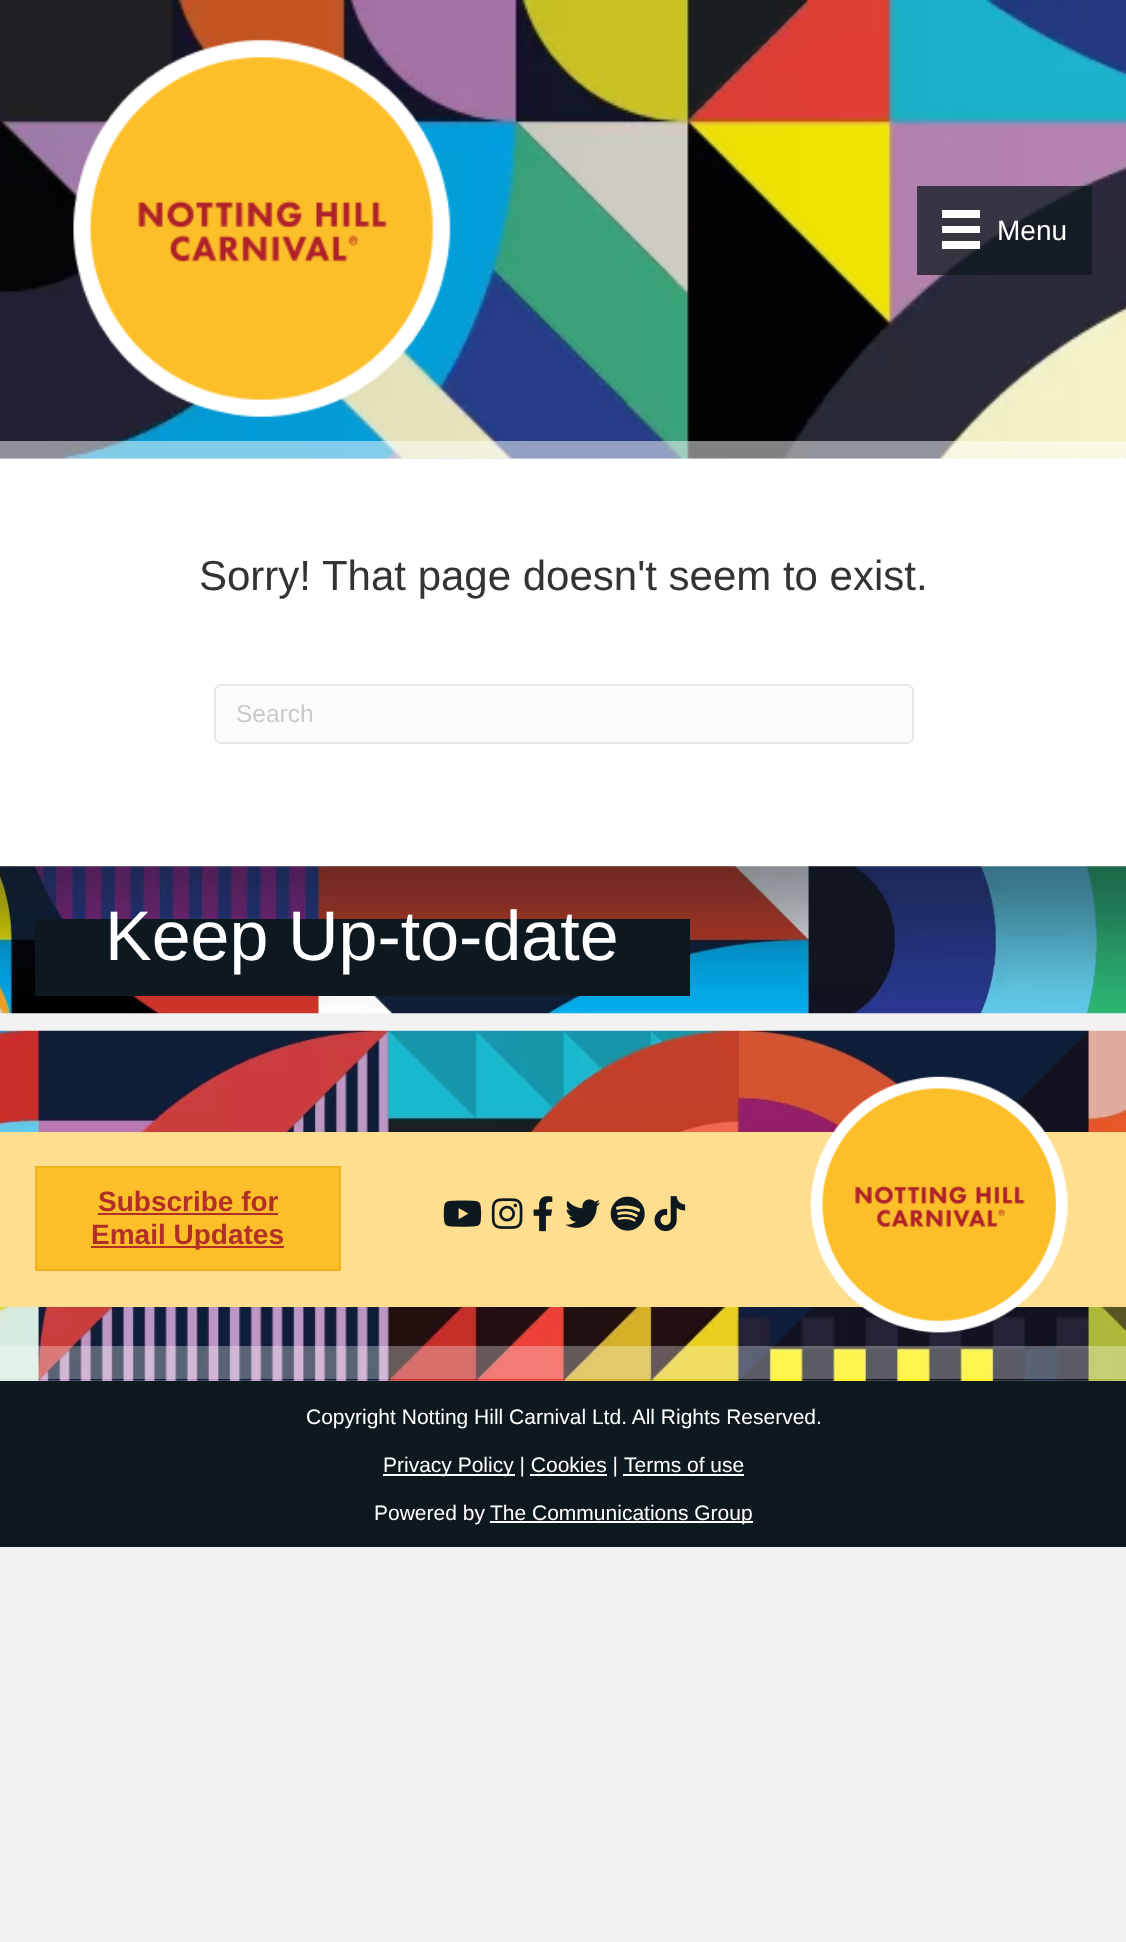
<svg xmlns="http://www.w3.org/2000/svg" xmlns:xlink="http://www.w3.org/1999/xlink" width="1126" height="1942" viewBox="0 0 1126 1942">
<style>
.cls-1{font:28px Liberation Sans;fill:#ffffff}
.cls-2{font:42px Liberation Sans;fill:#333333}
.cls-3{font:24.5px Liberation Sans;fill:#cacaca}
.cls-4{font:70px Liberation Sans;fill:#ffffff}
.cls-5{font:bold 28px Liberation Sans;fill:#b12f27}
.cls-6{font:21px Liberation Sans;fill:#ffffff}
</style>
<defs>
<linearGradient id="g1" gradientUnits="userSpaceOnUse" x1="0" y1="229" x2="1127" y2="229"><stop offset="0" stop-color="#0e191f" stop-opacity="0.15"/><stop offset="1" stop-color="#0e191f" stop-opacity="0.03"/></linearGradient>
</defs>
<rect width="100%" height="100%" fill="#f2f2f2"/>
<image xlink:href="image0.png" x="0" y="0" width="1126" height="459"/>
<rect fill="url(#g1)" x="0" y="0" width="1126" height="459"/>
<image xlink:href="image1.png" x="73" y="39" width="378" height="379"/>
<rect fill="#0e191f" fill-opacity="0.75" x="917" y="186" width="175" height="89"/>
<rect fill="#ffffff" x="942" y="210" width="38" height="8"/>
<rect fill="#ffffff" x="942" y="226" width="38" height="7"/>
<rect fill="#ffffff" x="942" y="241" width="38" height="8"/>
<rect fill="#ffffff" fill-opacity="0.5" x="0" y="441" width="1126" height="18"/>
<rect fill="#ffffff" x="0" y="459" width="1126" height="407"/>
<rect fill="#fcfcfc" stroke="#e6e6e6" stroke-width="2" x="215" y="685" width="698" height="58" rx="6"/>
<image xlink:href="image2.png" x="0" y="866" width="1126" height="148"/>
<rect fill="#0e191f" x="35" y="919" width="655" height="77"/>
<image xlink:href="image3.png" x="0" y="1030" width="1126" height="351"/>
<rect fill="#ffdf8f" x="0" y="1132" width="1126" height="175"/>
<rect fill="#fdbf29" stroke="#f1b31d" stroke-width="2" x="36" y="1167" width="304" height="103"/>
<rect fill="#b12f27" x="98" y="1213" width="180" height="2"/>
<rect fill="#b12f27" x="91" y="1246" width="193" height="2"/>
<image xlink:href="image4.png" x="443" y="1200" width="39" height="27"/>
<image xlink:href="image5.png" x="491" y="1198" width="32" height="31"/>
<image xlink:href="image6.png" x="533" y="1196" width="20" height="36"/>
<image xlink:href="image7.png" x="565" y="1199" width="36" height="29"/>
<image xlink:href="image8.png" x="610" y="1196" width="35" height="35"/>
<image xlink:href="image9.png" x="654" y="1196" width="32" height="36"/>
<image xlink:href="image10.png" x="810" y="1076" width="258" height="257"/>
<rect fill="#ffffff" fill-opacity="0.31" x="0" y="1346" width="1126" height="33"/>
<rect fill="#0e191f" x="0" y="1381" width="1126" height="166"/>
<rect fill="#ffffff" x="383" y="1474" width="132" height="2"/>
<rect fill="#ffffff" x="623" y="1474" width="121" height="2"/>
<rect fill="#ffffff" x="530" y="1474" width="77" height="2"/>
<rect fill="#ffffff" x="490" y="1521" width="263" height="2"/>
<text class="cls-1" x="997" y="240">Menu</text>
<text class="cls-2" x="199" y="590">Sorry! That page doesn't seem to exist.</text>
<text class="cls-3" x="236" y="722">Search</text>
<text class="cls-4" x="105" y="960">Keep Up-to-date</text>
<text class="cls-5" x="98" y="1211">Subscribe for</text>
<text class="cls-5" x="91" y="1244">Email Updates</text>
<text class="cls-6" x="306" y="1424">Copyright Notting Hill Carnival Ltd. All Rights Reserved.</text>
<text class="cls-6" x="383" y="1472">Privacy Policy | Cookies |</text>
<text class="cls-6" x="624" y="1472">Terms of use</text>
<text class="cls-6" x="374" y="1520">Powered by</text>
<text class="cls-6" x="490" y="1520">The Communications Group</text>
</svg>
